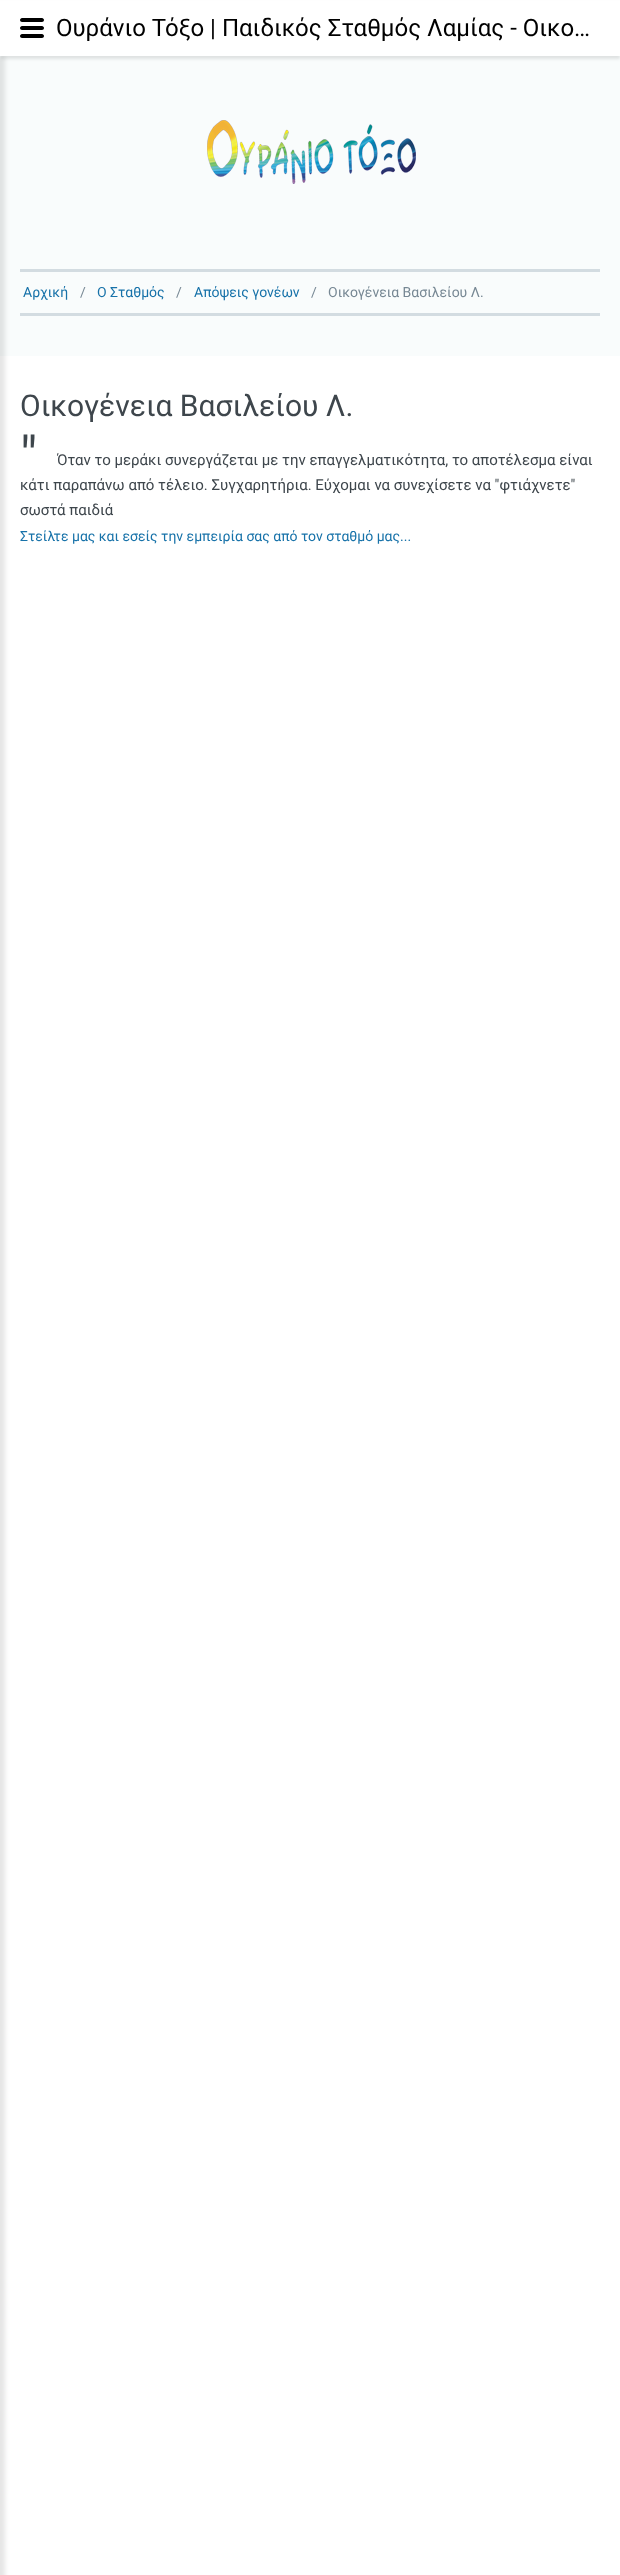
<svg xmlns="http://www.w3.org/2000/svg" xmlns:xlink="http://www.w3.org/1999/xlink" width="620" height="2575" viewBox="0 0 620 2575">
<style>
.cls-1{font:24px Roboto;fill:#000000}
.cls-2{font:14px Roboto;fill:#1772a9}
.cls-3{font:14px Roboto;fill:#778894}
.cls-4{font:30px Roboto;fill:#3e464c}
.cls-5{font:54px Roboto;fill:#3e464c}
.cls-6{font:15px Roboto;fill:#3e464c}
</style>
<rect width="100%" height="100%" fill="#ffffff"/>
<rect fill="#f9fcfc" x="0" y="56" width="620" height="300"/>
<rect fill="#000000" fill-opacity="0.1" filter="blur(1.5px)" x="0" y="3" width="620" height="56"/>
<rect fill="#000000" fill-opacity="0.1" filter="blur(2.5px)" x="-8" y="56" width="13" height="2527"/>
<rect fill="#ffffff" x="0" y="1" width="620" height="55"/>
<path fill="#000000" d="M42 30H22C21 30 20 29 20 28C20 27 21 26 22 26H42C43 26 44 27 44 28C44 29 43 30 42 30ZM42 38H22C21 38 20 37 20 36C20 35 21 34 22 34H42C43 34 44 35 44 36C44 37 43 38 42 38ZM42 22H22C21 22 20 21 20 20C20 19 21 18 22 18H42C43 18 44 19 44 20C44 21 43 22 42 22Z"/>
<image xlink:href="image0.png" x="207" y="120" width="209" height="64"/>
<rect fill="#d3dce1" x="20" y="269" width="580" height="3"/>
<rect fill="#d3dce1" x="20" y="313" width="580" height="3"/>
<text class="cls-1" x="56" y="36">Ουράνιο Τόξο | Παιδικός Σταθμός Λαμίας - Οικο…</text>
<text class="cls-2" x="23" y="297">Αρχική</text>
<text class="cls-3" x="80" y="297">/</text>
<text class="cls-2" x="97" y="297">Ο Σταθμός</text>
<text class="cls-3" x="176" y="297">/</text>
<text class="cls-2" x="194" y="297">Απόψεις γονέων</text>
<text class="cls-3" x="311" y="297">/</text>
<text class="cls-3" x="328" y="297">Οικογένεια Βασιλείου Λ.</text>
<text class="cls-4" x="20" y="416">Οικογένεια Βασιλείου Λ.</text>
<text class="cls-5" x="20" y="475">"</text>
<text class="cls-6" x="57" y="465">Όταν το μεράκι συνεργάζεται με την επαγγελματικότητα, το αποτέλεσμα είναι</text>
<text class="cls-6"><tspan x="20" y="490">κάτι παραπάνω από τέλειο. Συγχαρητήρια. Εύχομαι να συνεχίσετε να "φτιάχνετε"</tspan><tspan x="20" y="515">σωστά παιδιά</tspan></text>
<text class="cls-2" x="20" y="541">Στείλτε μας και εσείς την εμπειρία σας από τον σταθμό μας...</text>
</svg>
